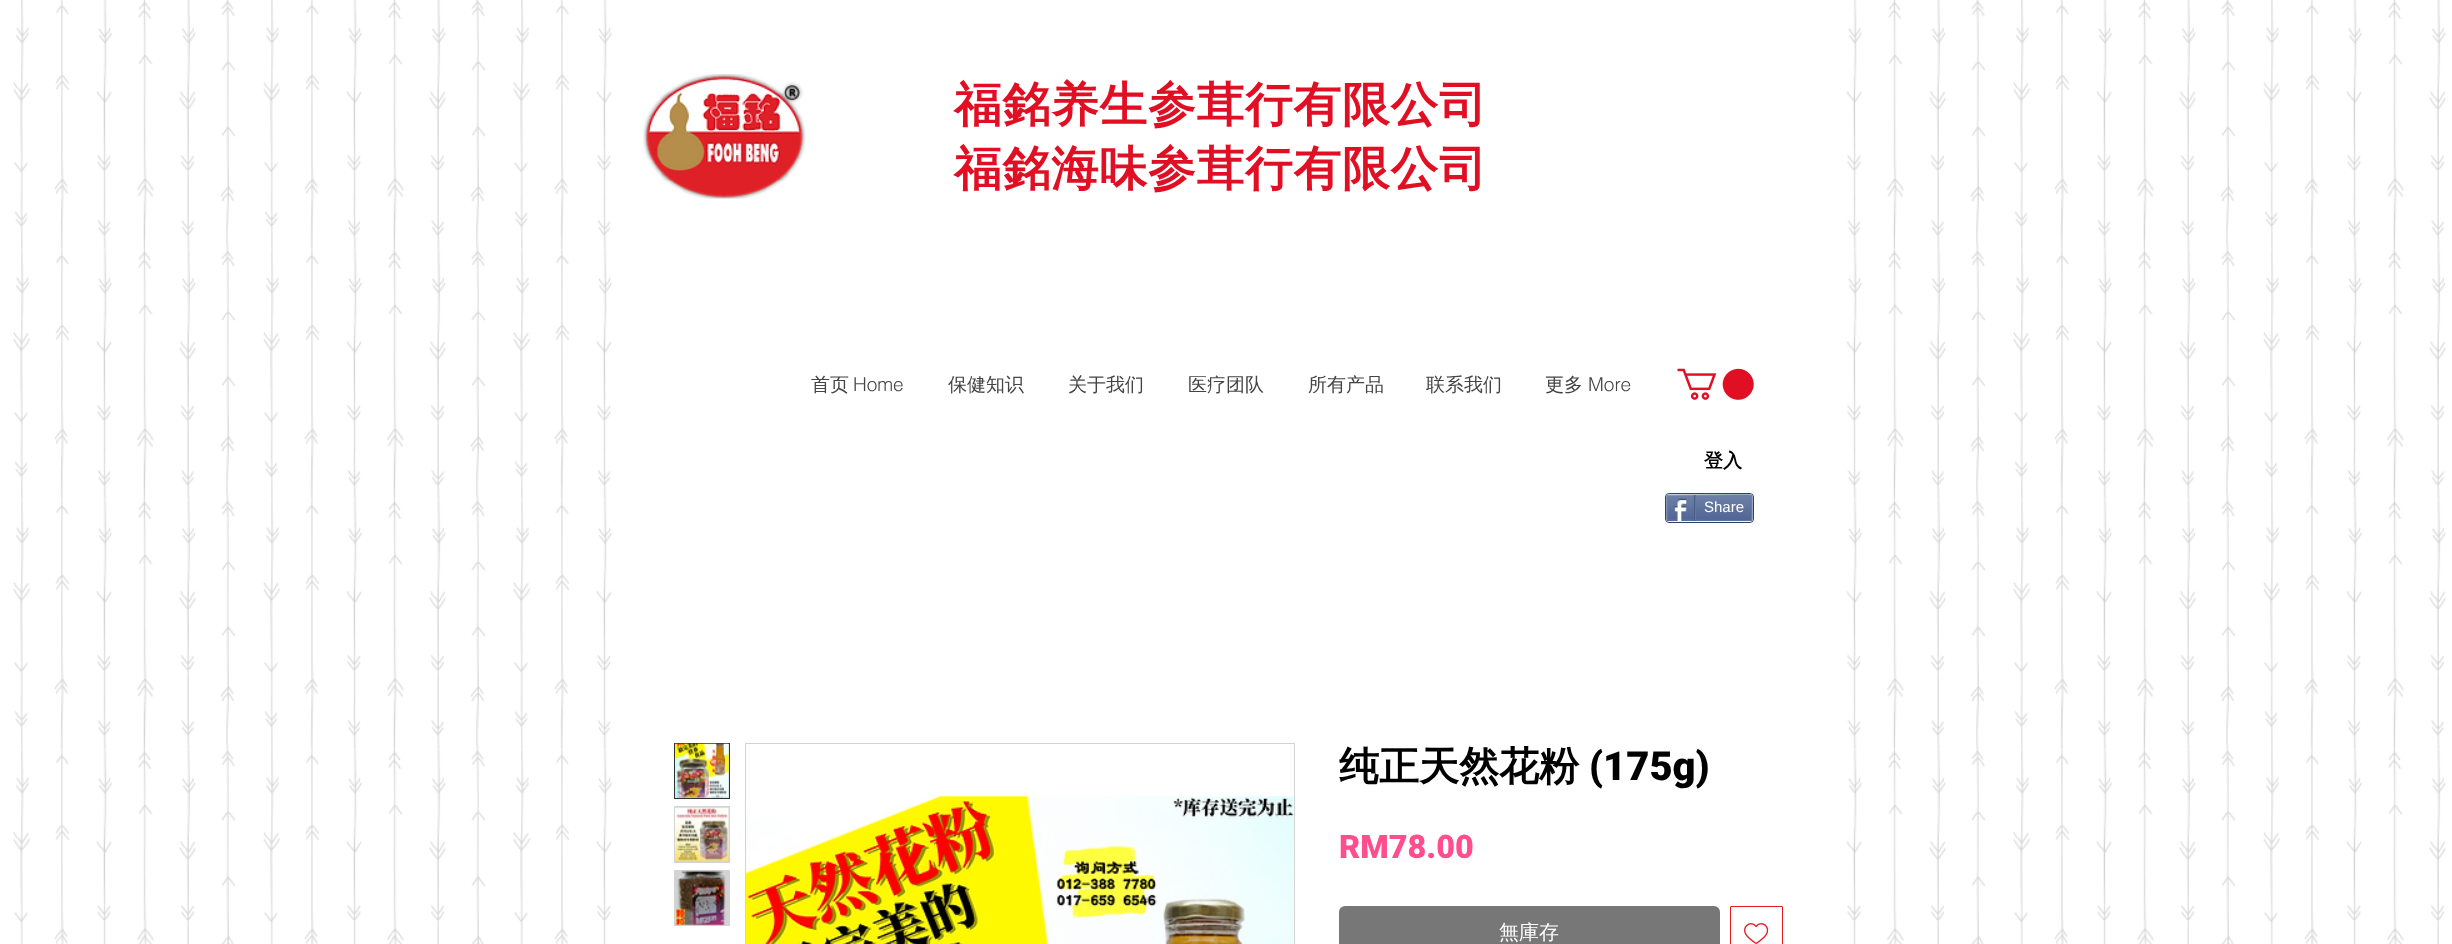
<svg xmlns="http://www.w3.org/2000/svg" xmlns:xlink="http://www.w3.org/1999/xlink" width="2452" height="944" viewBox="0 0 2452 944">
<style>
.cls-1{font:bold 47.5px WenQuanYi Zen Hei;letter-spacing:1px;fill:#e00f24}
.cls-2{font:500 19px WenQuanYi Zen Hei;fill:#444444}
.cls-3{font:300 19px helvetica;fill:#444444}
.cls-4{font:bold 19px WenQuanYi Zen Hei;fill:#000000}
.cls-5{font:15px Liberation Sans;fill:#ffffff}
.cls-6{font:bold 40px WenQuanYi Zen Hei;fill:#000000}
.cls-7{font:900 40px Roboto;fill:#000000}
.cls-8{font:900 32.5px Roboto;fill:#ff4d8e}
.cls-9{font:500 20px WenQuanYi Zen Hei;fill:#ffffff}
</style>
<rect width="100%" height="100%" fill="#ffffff"/>
<image xlink:href="image0.png" x="13" y="0" width="2433" height="944"/>
<rect fill="#ffffff" x="637" y="0" width="1182" height="944"/>
<image xlink:href="image1.png" x="643" y="74" width="163" height="125"/>
<image xlink:href="image2.png" x="1677" y="368" width="77" height="32"/>
<rect fill="none" stroke="#2d4565" x="1665.5" y="493.5" width="88" height="29" rx="3.5"/>
<image xlink:href="image3.png" x="1666" y="495" width="87" height="27"/>
<path fill="none" stroke="#9aabc6" stroke-width="1.2" d="M1667.5 495L1736.5 494.5H1750L1751.5 495"/>
<path fill="none" stroke="#6f83ad" stroke-width="1.2" d="M1751.5 495L1752 496V519L1751.5 520"/>
<path fill="none" stroke="#6176a3" stroke-width="1.2" d="M1751.5 520L1750 520.5L1667.5 520"/>
<path fill="none" stroke="#6f83ad" stroke-width="1.2" d="M1667.5 520L1667 519V496L1667.5 495"/>
<image xlink:href="image4.png" x="1674" y="498" width="13" height="23"/>
<rect fill="#425e85" x="1694" y="495" width="1" height="26"/>
<rect fill="#6176a3" x="1695" y="495" width="1" height="25"/>
<rect fill="#d3d3d3" stroke="#303132" x="674.5" y="743.5" width="55" height="55"/>
<image xlink:href="image5.png" x="675" y="743" width="54" height="55"/>
<rect fill="#d3d3d3" x="674" y="806" width="56" height="57"/>
<image xlink:href="image6.png" x="675" y="807" width="54" height="55"/>
<rect fill="#d3d3d3" x="674" y="870" width="56" height="56"/>
<image xlink:href="image7.png" x="675" y="870" width="51" height="56"/>
<rect fill="none" stroke="#d3d3d3" x="745.5" y="743.5" width="549" height="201"/>
<image xlink:href="image8.png" x="746" y="796" width="548" height="148"/>
<rect fill="#777777" x="1339" y="906" width="381" height="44" rx="6"/>
<rect fill="none" stroke="#e21c21" x="1730.5" y="906.5" width="52" height="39" rx="0.5"/>
<image xlink:href="image9.png" x="1744" y="923" width="25" height="21"/>
<text class="cls-1"><tspan x="954" y="121">福銘养生参茸行有限公司</tspan><tspan x="954" y="185">福銘海味参茸行有限公司</tspan></text>
<text class="cls-2" x="811" y="391">首页</text>
<text class="cls-3" x="853" y="391">Home</text>
<text class="cls-2" x="948" y="391">保健知识</text>
<text class="cls-2" x="1068" y="391">关于我们</text>
<text class="cls-2" x="1188" y="391">医疗团队</text>
<text class="cls-2" x="1308" y="391">所有产品</text>
<text class="cls-2" x="1426" y="391">联系我们</text>
<text class="cls-2" x="1545" y="391">更多</text>
<text class="cls-3" x="1588" y="391">More</text>
<text class="cls-4" x="1704" y="467">登入</text>
<text class="cls-5" x="1704" y="512">Share</text>
<text class="cls-6" x="1339" y="780">纯正天然花粉</text>
<text class="cls-7" x="1589" y="780">(175g)</text>
<text class="cls-8" x="1339" y="858">RM78.00</text>
<text class="cls-9" x="1499" y="939">無庫存</text>
</svg>
